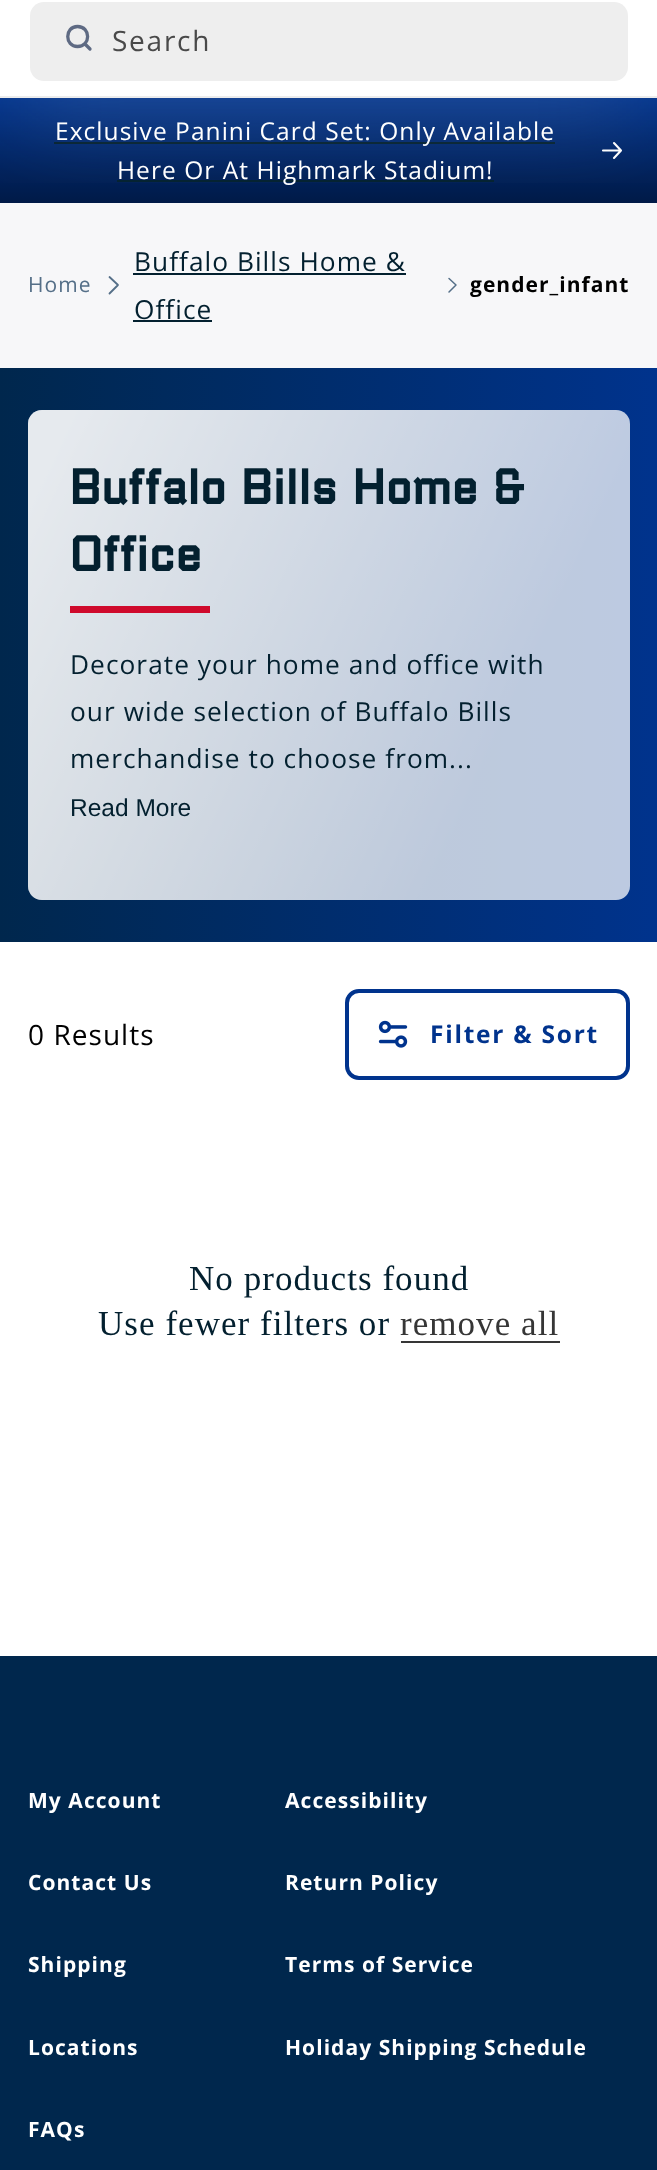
<svg xmlns="http://www.w3.org/2000/svg" xmlns:xlink="http://www.w3.org/1999/xlink" width="657" height="2170" viewBox="0 0 657 2170">
<style>
.cls-1{font:28px Open Sans;letter-spacing:1.75px;fill:#494949}
.cls-2{font:24.5px Open Sans;letter-spacing:1.05px;fill:#ffffff}
.cls-3{font:21px Open Sans;letter-spacing:1.05px;fill:#556f88}
.cls-4{font:26.25px Open Sans;letter-spacing:1.05px;fill:#03202f}
.cls-5{font:bold 21px Open Sans;letter-spacing:1.05px;fill:#000000}
.cls-6{font:bold 49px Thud;letter-spacing:1.05px;fill:#03202f}
.cls-7{font:24.5px Liberation Sans;fill:#03202f}
.cls-8{font:28px Open Sans;letter-spacing:1.05px;fill:#000000}
.cls-9{font:bold 24.5px Open Sans;letter-spacing:1.75px;fill:#00338d}
.cls-10{font:35px Liberation Serif;letter-spacing:1.05px;fill:#03202f}
.cls-11{font:35px Liberation Serif;letter-spacing:1.05px;fill:#363636}
.cls-12{font:bold 21px Open Sans;letter-spacing:1.05px;fill:#ffffff}
</style>
<defs>
<linearGradient id="g1" gradientUnits="userSpaceOnUse" x1="329" y1="98" x2="329" y2="203"><stop offset="0" stop-color="#00338d"/><stop offset="1" stop-color="#001a47"/></linearGradient>
<clipPath id="clip1"><rect x="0" y="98" width="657" height="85"/></clipPath>
<linearGradient id="g2" gradientUnits="userSpaceOnUse" x1="0" y1="655" x2="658" y2="655"><stop offset="0" stop-color="#00274d"/><stop offset="1" stop-color="#00338d"/></linearGradient>
<linearGradient id="g3" gradientUnits="userSpaceOnUse" x1="-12" y1="495" x2="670" y2="814"><stop offset="0.05" stop-color="#ffffff" stop-opacity="0.65"/><stop offset="0.75" stop-color="#fcfcfc" stop-opacity="0.08"/></linearGradient>
</defs>
<rect width="100%" height="100%" fill="#ffffff"/>
<rect fill="url(#g1)" x="0" y="98" width="657" height="105"/>
<rect fill="#03202f" x="54" y="142" width="501" height="2"/>
<path fill="none" stroke="#ffffff" stroke-width="2.1" stroke-linecap="round" stroke-linejoin="round" d="M614 143L621 150.5L614 158M620 150.5H603"/>
<rect fill="#03202f" x="117" y="180" width="377" height="2"/>
<rect fill="#f7f7f9" x="0" y="203" width="657" height="165"/>
<rect fill="#03202f" x="133" y="273" width="273" height="2"/>
<g clip-path="url(#clip1)">
<rect fill="#aab7c4" fill-opacity="0.2" filter="blur(52.5px)" x="14" y="-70" width="630" height="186"/>
</g>
<rect fill="#ececec" x="0" y="96" width="657" height="2"/>
<rect fill="#eeeeee" x="30" y="2" width="598" height="79" rx="14"/>
<path fill="none" stroke="#5e6a83" stroke-width="3.3" stroke-linecap="round" stroke-linejoin="round" d="M77.5 46.5C91 46.5 91 26.5 77.5 26.5C64.5 26.5 64.5 46.5 77.5 46.5ZM90 49L85.5 44.5"/>
<path fill="none" stroke="#556f88" stroke-width="1.8" stroke-linecap="round" stroke-linejoin="round" d="M109.5 277L118 285L109.5 293.5"/>
<rect fill="#03202f" x="133" y="320" width="79" height="2"/>
<path fill="none" stroke="#556f88" stroke-width="1.5" stroke-linecap="round" stroke-linejoin="round" d="M449 278.5L456 285L449 292"/>
<rect fill="url(#g2)" x="0" y="368" width="657" height="574"/>
<rect fill="url(#g3)" x="28" y="410" width="602" height="490" rx="14"/>
<rect fill="#ffffff" fill-opacity="0.72" x="28" y="410" width="602" height="490" rx="14"/>
<rect fill="#cf0a2c" x="70" y="606" width="140" height="7"/>
<rect fill="none" stroke="#00338d" stroke-width="4" x="347" y="991" width="281" height="87" rx="12"/>
<image xlink:href="image0.png" x="378" y="1020" width="30" height="28"/>
<rect fill="#363636" x="401" y="1341" width="159" height="2"/>
<rect fill="#00274d" x="0" y="1656" width="657" height="514"/>
<text class="cls-1" x="112" y="51">Search</text>
<text class="cls-2" x="55" y="140">Exclusive Panini Card Set: Only Available</text>
<text class="cls-2" x="117" y="179">Here Or At Highmark Stadium!</text>
<text class="cls-3" x="28" y="292">Home</text>
<text class="cls-4"><tspan x="134" y="271">Buffalo Bills Home &amp;</tspan><tspan x="134" y="319">Office</tspan></text>
<text class="cls-5" x="470" y="292">gender_infant</text>
<text class="cls-6"><tspan x="70" y="504">Buffalo Bills Home &amp;</tspan><tspan x="70" y="571">Office</tspan></text>
<text class="cls-4"><tspan x="70" y="674">Decorate your home and office with</tspan><tspan x="70" y="721">our wide selection of Buffalo Bills</tspan><tspan x="70" y="768">merchandise to choose from...</tspan></text>
<text class="cls-7" x="70" y="816">Read More</text>
<text class="cls-8" x="28" y="1045">0 Results</text>
<text class="cls-9" x="430" y="1043">Filter &amp; Sort</text>
<text class="cls-10" x="189" y="1290">No products found</text>
<text class="cls-10" x="98" y="1335">Use fewer filters or</text>
<text class="cls-11" x="400" y="1335">remove all</text>
<text class="cls-12" x="28" y="1808">My Account</text>
<text class="cls-12" x="285" y="1808">Accessibility</text>
<text class="cls-12" x="28" y="1890">Contact Us</text>
<text class="cls-12" x="285" y="1890">Return Policy</text>
<text class="cls-12" x="28" y="1972">Shipping</text>
<text class="cls-12" x="285" y="1972">Terms of Service</text>
<text class="cls-12" x="28" y="2055">Locations</text>
<text class="cls-12" x="285" y="2055">Holiday Shipping Schedule</text>
<text class="cls-12" x="28" y="2137">FAQs</text>
</svg>
